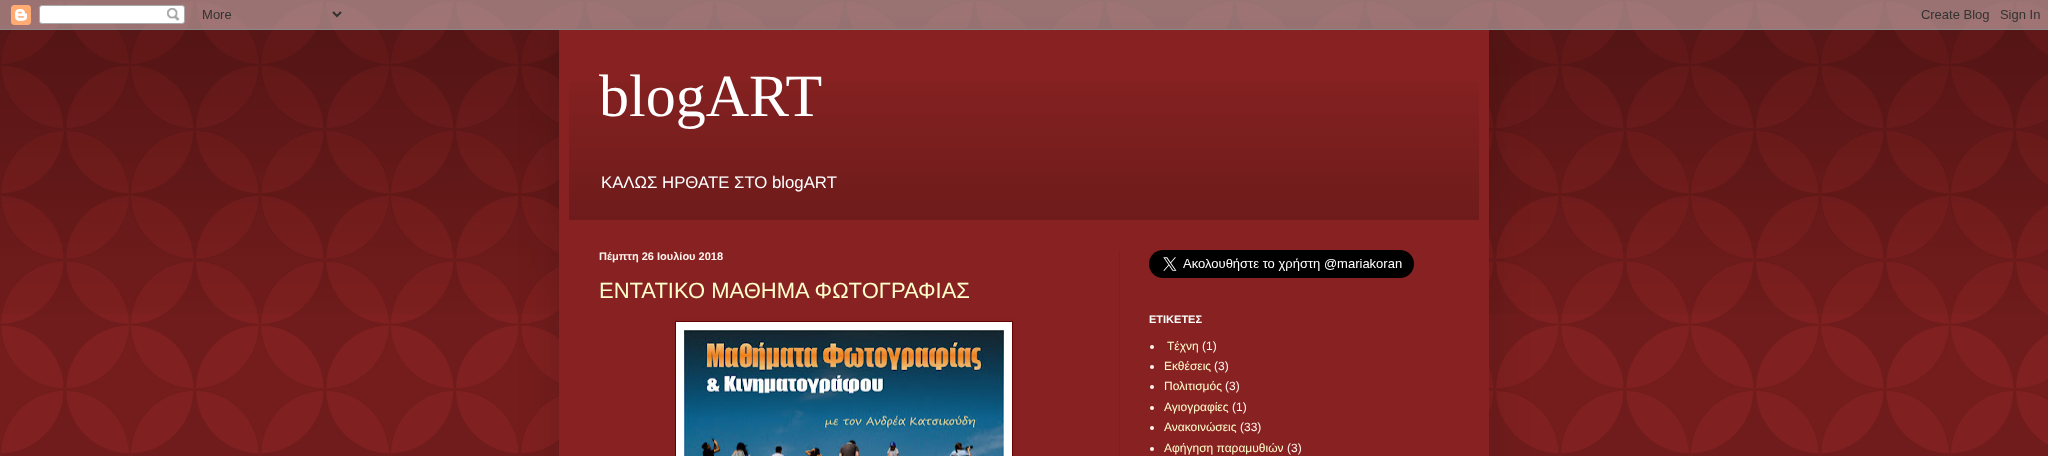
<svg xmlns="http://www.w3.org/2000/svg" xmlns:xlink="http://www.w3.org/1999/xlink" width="2048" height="456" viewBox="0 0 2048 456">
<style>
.cls-1{font:60px Liberation Serif;fill:#ffffff}
.cls-2{font:16.75px Liberation Sans;fill:#ffffff}
.cls-3{font:bold 11px Liberation Sans;fill:#fff5ee}
.cls-4{font:22px Liberation Sans;fill:#ffffcc}
.cls-5{font:bold 11px Liberation Sans;fill:#ffffff}
.cls-6{font:12px Liberation Sans;fill:#ffffcc}
.cls-7{font:12px Liberation Sans;fill:#fff5ee}
</style>
<rect width="100%" height="100%" fill="#882222"/>
<image xlink:href="image0.png" x="0" y="0" width="2048" height="456"/>
<image xlink:href="image1.png" x="0" y="0" width="2048" height="314"/>
<rect fill="#000000" fill-opacity="0.15" filter="blur(20px)" x="559" y="30" width="930" height="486"/>
<image xlink:href="image2.png" x="0" y="0" width="2048" height="30"/>
<rect fill="#882222" x="559" y="30" width="930" height="426"/>
<image xlink:href="image3.png" x="569" y="82" width="910" height="138"/>
<rect fill="#772222" x="1119" y="250" width="1" height="206"/>
<rect fill="#000000" fill-opacity="0.1" filter="blur(2.5px)" x="676" y="322" width="338" height="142"/>
<rect fill="#ffffff" stroke="#660000" x="675.5" y="321.5" width="337" height="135"/>
<image xlink:href="image4.png" x="684" y="330" width="320" height="126"/>
<image xlink:href="image5.png" x="1149" y="250" width="265" height="28"/>
<circle fill="#fff5ee" cx="1152" cy="347" r="2"/>
<circle fill="#fff5ee" cx="1152" cy="367" r="2"/>
<circle fill="#fff5ee" cx="1152" cy="387" r="2"/>
<circle fill="#fff5ee" cx="1152" cy="408" r="2"/>
<circle fill="#fff5ee" cx="1152" cy="428" r="2"/>
<circle fill="#fff5ee" cx="1152" cy="449" r="2"/>
<text class="cls-1" x="599" y="116">blogART</text>
<text class="cls-2" x="601" y="188">ΚΑΛΩΣ ΗΡΘΑΤΕ ΣΤΟ blogART</text>
<text class="cls-3" x="599" y="260">Πέμπτη 26 Ιουλίου 2018</text>
<text class="cls-4" x="599" y="298">ΕΝΤΑΤΙΚΟ ΜΑΘΗΜΑ ΦΩΤΟΓΡΑΦΙΑΣ</text>
<text class="cls-5" x="1149" y="323">ΕΤΙΚΕΤΕΣ</text>
<text class="cls-6" x="1167" y="350">Tέχνη</text>
<text class="cls-7" x="1202" y="350">(1)</text>
<text class="cls-6" x="1164" y="370">Εκθέσεις</text>
<text class="cls-7" x="1214" y="370">(3)</text>
<text class="cls-6" x="1164" y="390">Πολιτισμός</text>
<text class="cls-7" x="1225" y="390">(3)</text>
<text class="cls-6" x="1164" y="411">Αγιογραφίες</text>
<text class="cls-7" x="1232" y="411">(1)</text>
<text class="cls-6" x="1164" y="431">Ανακοινώσεις</text>
<text class="cls-7" x="1240" y="431">(33)</text>
<text class="cls-6" x="1164" y="452">Αφήγηση παραμυθιών</text>
<text class="cls-7" x="1287" y="452">(3)</text>
</svg>
